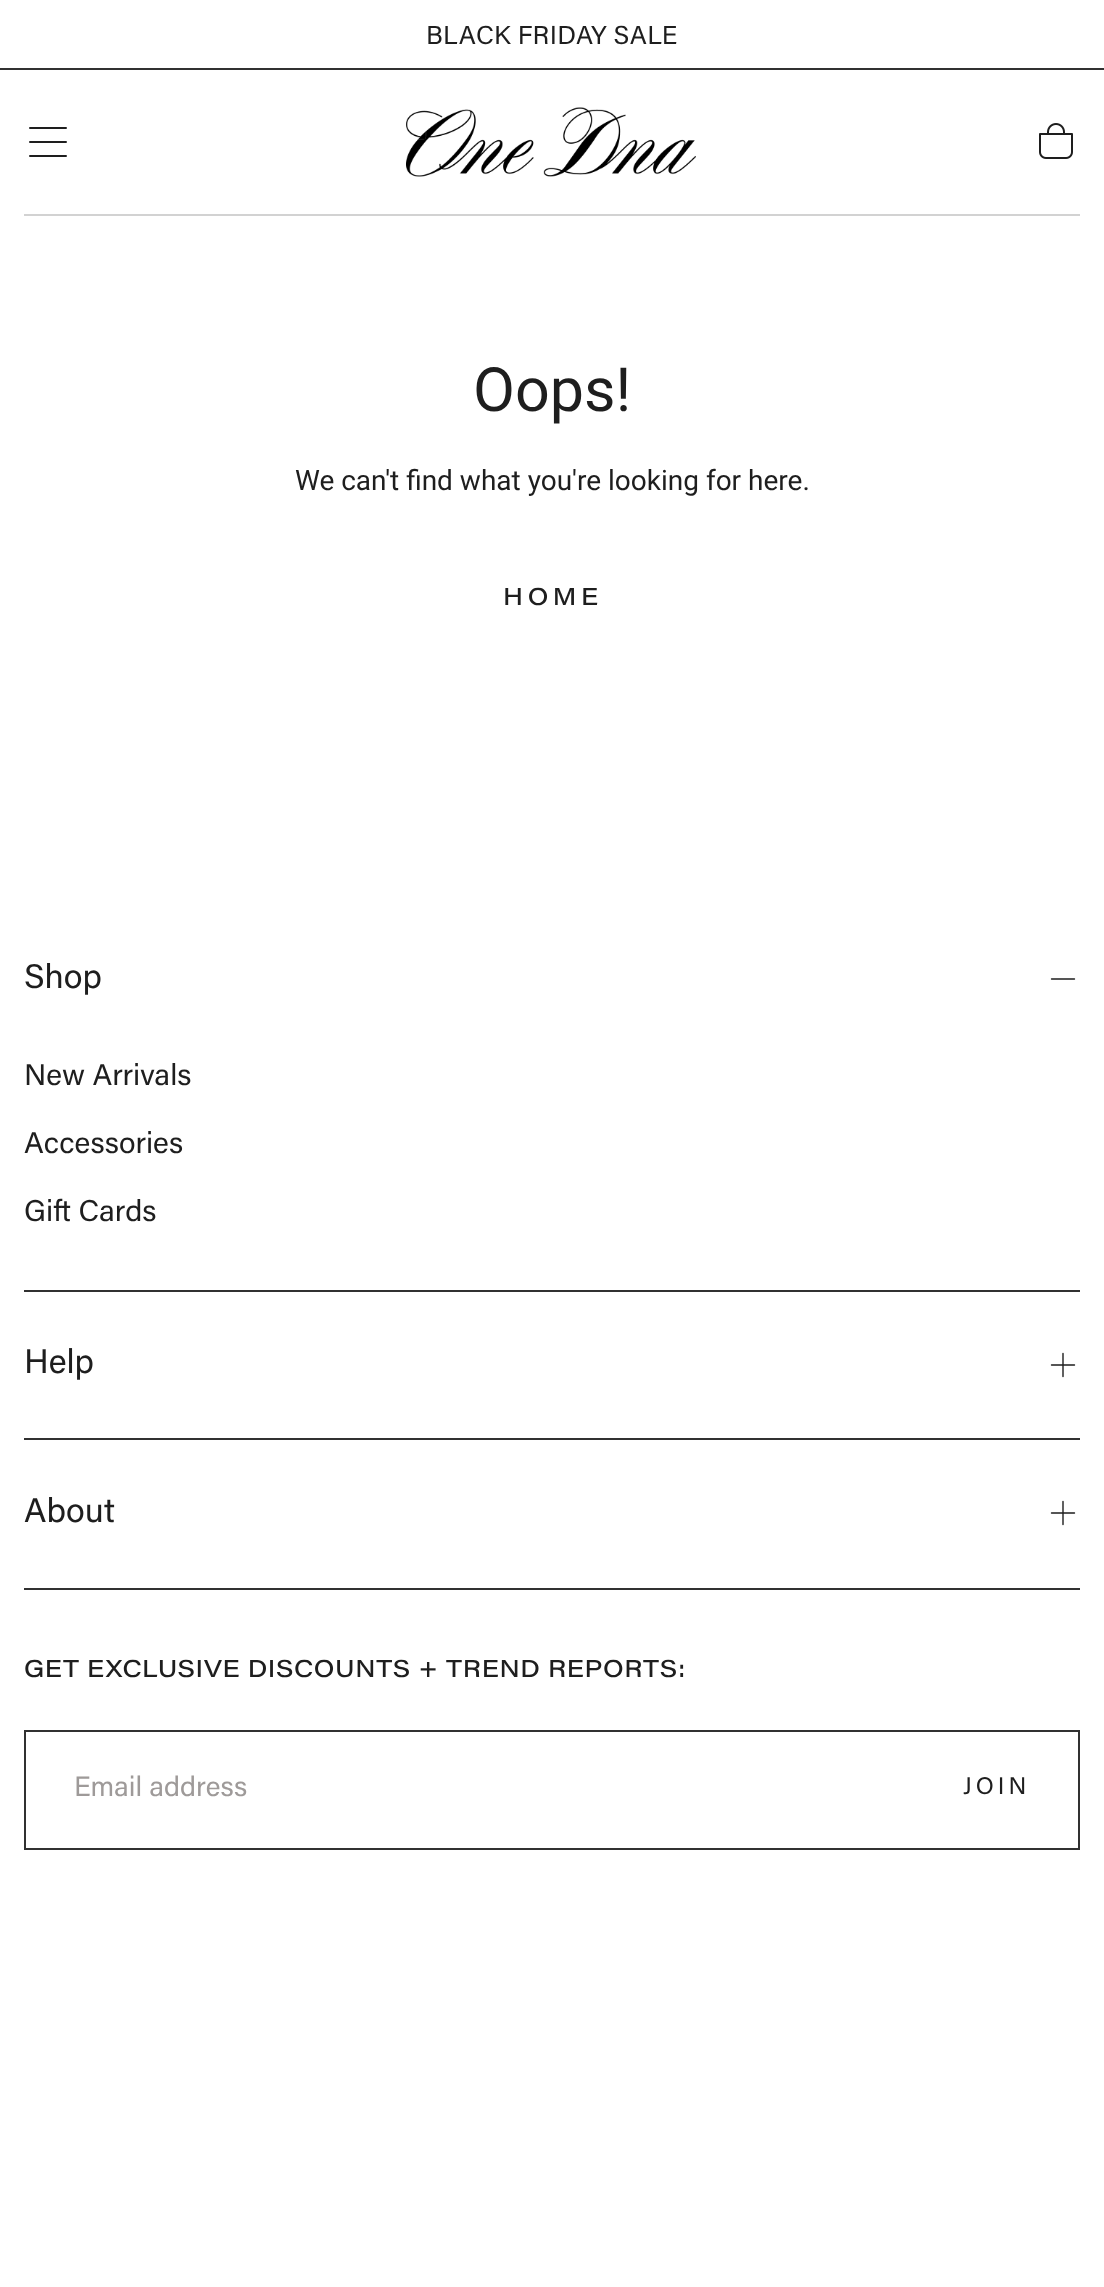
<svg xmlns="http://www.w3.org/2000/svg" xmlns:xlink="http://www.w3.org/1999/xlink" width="1104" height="2287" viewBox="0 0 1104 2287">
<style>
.cls-1{font:26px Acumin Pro;letter-spacing:0.25px;fill:#1e1e1e}
.cls-2{font:61px Roboto;fill:#1e1e1e}
.cls-3{font:28px Roboto;fill:#1e1e1e}
.cls-4{font:500 24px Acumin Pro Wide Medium;letter-spacing:4.5px;fill:#1e1e1e}
.cls-5{font:34px Acumin Pro;fill:#1e1e1e}
.cls-6{font:30px Acumin Pro;fill:#1e1e1e}
.cls-7{font:500 24px Acumin Pro Wide Medium;letter-spacing:0.5px;fill:#1e1e1e}
.cls-8{font:28px Acumin Pro;fill:#9e9a99}
.cls-9{font:24px Acumin Pro;letter-spacing:4px;fill:#1e1e1e}
</style>
<rect width="100%" height="100%" fill="#ffffff"/>
<rect fill="#313131" x="0" y="68" width="1104" height="2"/>
<path fill="none" stroke="#1e1e1e" stroke-width="2" stroke-linecap="round" d="M30 142H66M30 128H66M30 156H66"/>
<image xlink:href="image0.png" x="406" y="107" width="290" height="70"/>
<image xlink:href="image1.png" x="1039" y="123" width="34" height="36"/>
<rect fill="#d2d2d2" x="24" y="214" width="1056" height="2"/>
<rect fill="#313131" x="24" y="1290" width="1056" height="2"/>
<path fill="none" stroke="#1e1e1e" stroke-width="1.4" stroke-linecap="round" d="M1051.5 979H1074.5"/>
<rect fill="#313131" x="24" y="1438" width="1056" height="2"/>
<path fill="none" stroke="#1e1e1e" stroke-width="1.4" stroke-linecap="round" d="M1063 1353.5V1365M1063 1365V1376.5M1063 1365H1051.5M1063 1365H1074.5"/>
<rect fill="#313131" x="24" y="1588" width="1056" height="2"/>
<path fill="none" stroke="#1e1e1e" stroke-width="1.4" stroke-linecap="round" d="M1063 1501.5V1513M1063 1513V1524.5M1063 1513H1051.5M1063 1513H1074.5"/>
<rect fill="none" stroke="#313131" stroke-width="2" x="25" y="1731" width="1054" height="118"/>
<text class="cls-1" x="426" y="44">BLACK FRIDAY SALE</text>
<text class="cls-2" x="473" y="411">Oops!</text>
<text class="cls-3" x="295" y="490">We can't find what you're looking for here.</text>
<text class="cls-4" x="503" y="605">HOME</text>
<text class="cls-5" x="24" y="988">Shop</text>
<text class="cls-6" x="24" y="1085">New Arrivals</text>
<text class="cls-6" x="24" y="1153">Accessories</text>
<text class="cls-6" x="24" y="1221">Gift Cards</text>
<text class="cls-5" x="24" y="1373">Help</text>
<text class="cls-5" x="24" y="1522">About</text>
<text class="cls-7" x="24" y="1677">GET EXCLUSIVE DISCOUNTS + TREND REPORTS:</text>
<text class="cls-8" x="74" y="1796">Email address</text>
<text class="cls-9" x="963" y="1794">JOIN</text>
</svg>
